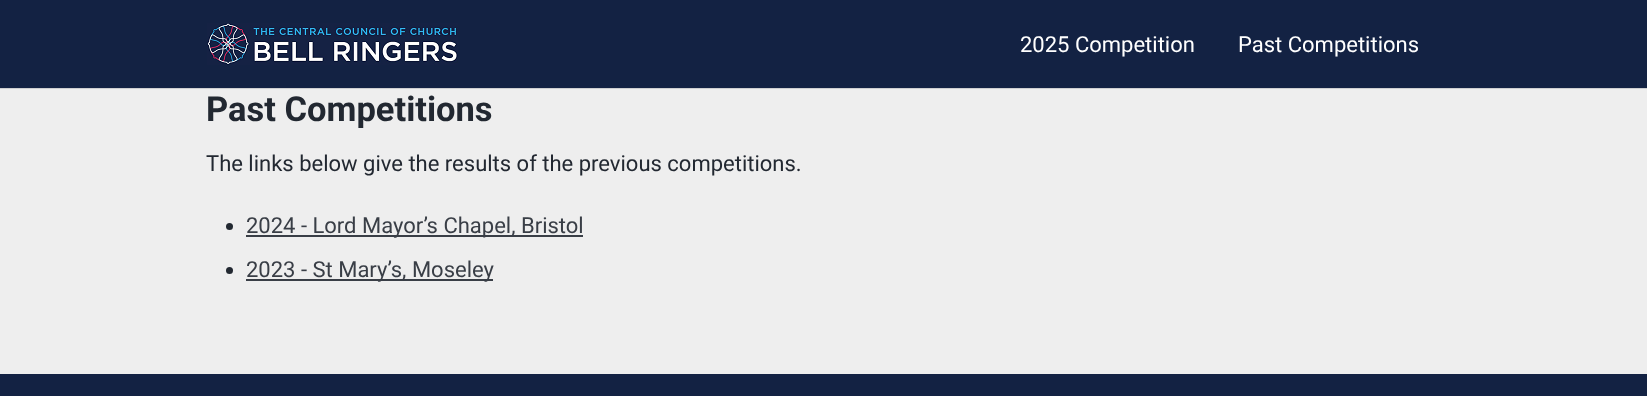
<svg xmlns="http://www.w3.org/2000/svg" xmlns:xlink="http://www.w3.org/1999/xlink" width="1647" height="396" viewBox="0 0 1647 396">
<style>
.cls-1{font:22px Roboto;fill:#ffffff}
.cls-2{font:bold 34.5px Roboto;fill:#222831}
.cls-3{font:22px Roboto;fill:#222831}
.cls-4{font:22px Roboto;fill:#393e46}
</style>
<rect width="100%" height="100%" fill="#eeeeee"/>
<rect fill="#132243" x="0" y="0" width="1647" height="88"/>
<rect fill="#cecfd1" x="0" y="88" width="1647" height="1"/>
<image xlink:href="image0.png" x="207" y="23" width="251" height="42"/>
<circle fill="#222831" cx="229.5" cy="226.5" r="3.5"/>
<rect fill="#393e46" x="246" y="235" width="337" height="2"/>
<circle fill="#222831" cx="229.5" cy="270.5" r="3.5"/>
<rect fill="#393e46" x="246" y="279" width="247" height="2"/>
<rect fill="#132243" x="0" y="374" width="1647" height="22"/>
<text class="cls-1" x="1020" y="52">2025 Competition</text>
<text class="cls-1" x="1238" y="52">Past Competitions</text>
<text class="cls-2" x="206" y="121">Past Competitions</text>
<text class="cls-3" x="206" y="171">The links below give the results of the previous competitions.</text>
<text class="cls-4" x="246" y="233">2024 - Lord Mayor’s Chapel, Bristol</text>
<text class="cls-4" x="246" y="277">2023 - St Mary’s, Moseley</text>
</svg>
